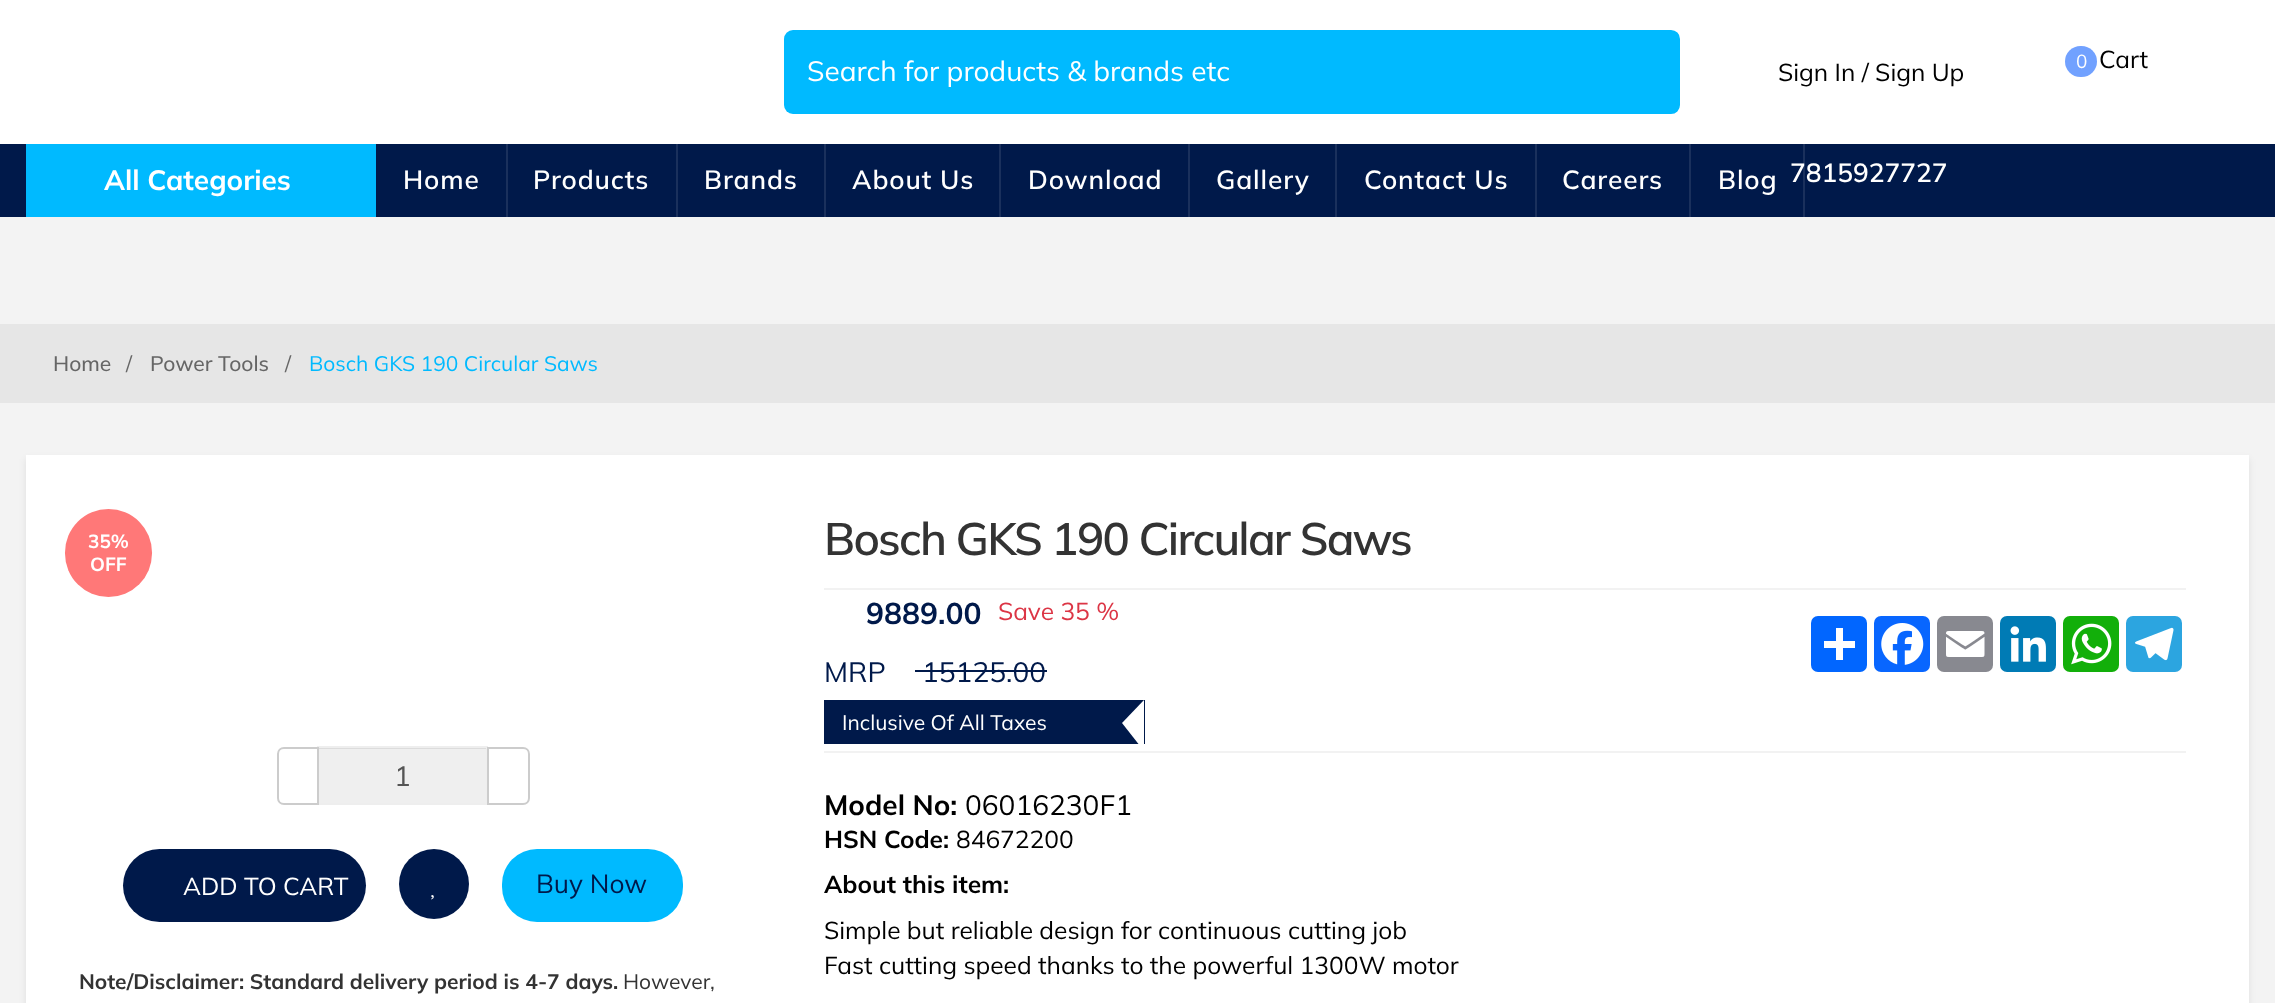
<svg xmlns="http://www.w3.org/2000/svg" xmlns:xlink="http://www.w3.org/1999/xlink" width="2275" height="1003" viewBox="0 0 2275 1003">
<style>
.cls-1{font:28px Mulish;fill:#ffffff}
.cls-2{font:19px Mulish;fill:#ffffff}
.cls-3{font:24.5px Mulish;fill:#000000}
.cls-4{font:bold 28px Mulish;fill:#ffffff}
.cls-5{font:600 26.25px Mulish;letter-spacing:0.9px;fill:#ffffff}
.cls-6{font:600 26.25px Mulish;fill:#ffffff}
.cls-7{font:500 21px Mulish;fill:#666666}
.cls-8{font:21px Mulish;fill:#666666}
.cls-9{font:21px Mulish;fill:#00baff}
.cls-10{font:bold 19px Mulish;fill:#ffffff}
.cls-11{font:28px Mulish;fill:#555555}
.cls-12{font:24.5px Mulish;fill:#ffffff}
.cls-13{font:26.25px Mulish;fill:#00194a}
.cls-14{font:bold 21px Mulish;fill:#333333}
.cls-15{font:21px Mulish;fill:#333333}
.cls-16{font:600 45.5px Mulish;letter-spacing:-1.75px;fill:#333333}
.cls-17{font:bold 30px Mulish;fill:#00194a}
.cls-18{font:24.5px Mulish;fill:#dc3545}
.cls-19{font:28px Mulish;fill:#00194a}
.cls-20{font:21px Mulish;fill:#ffffff}
.cls-21{font:bold 28px Mulish;fill:#000000}
.cls-22{font:28px Mulish;fill:#000000}
.cls-23{font:bold 24.5px Mulish;fill:#000000}
</style>
<rect width="100%" height="100%" fill="#f3f3f3"/>
<rect fill="#ffffff" x="0" y="0" width="2275" height="144"/>
<rect fill="#00baff" x="784" y="30" width="896" height="84" rx="42"/>
<rect fill="#00baff" x="784" y="30" width="779" height="84" rx="9"/>
<path fill="#00baff" stroke="#00baff" stroke-width="2" d="M1590 31H1671C1675.5 31 1679 34.5 1679 39V105C1679 109.5 1675.5 113 1671 113H1590Z"/>
<rect fill="#71a1ff" x="2065" y="46" width="32" height="31" rx="15.5"/>
<rect fill="#00194a" x="0" y="144" width="2275" height="73"/>
<rect fill="#00baff" x="26" y="144" width="350" height="73"/>
<rect fill="#1a305c" x="506" y="144" width="2" height="73"/>
<rect fill="#1a305c" x="676" y="144" width="2" height="73"/>
<rect fill="#1a305c" x="824" y="144" width="2" height="73"/>
<rect fill="#1a305c" x="999" y="144" width="2" height="73"/>
<rect fill="#1a305c" x="1188" y="144" width="2" height="73"/>
<rect fill="#1a305c" x="1335" y="144" width="2" height="73"/>
<rect fill="#1a305c" x="1535" y="144" width="2" height="73"/>
<rect fill="#1a305c" x="1689" y="144" width="2" height="73"/>
<rect fill="#1a305c" x="1803" y="144" width="2" height="73"/>
<rect fill="#e6e6e6" x="0" y="324" width="2275" height="79"/>
<rect fill="#000000" fill-opacity="0.08" filter="blur(3.5px)" x="26" y="459" width="2223" height="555"/>
<rect fill="#ffffff" x="26" y="455" width="2223" height="548"/>
<rect fill="#ff7878" x="65" y="509" width="87" height="88" rx="43.5"/>
<rect fill="#efefef" x="319" y="749" width="167" height="54"/>
<rect fill="#dcdcdc" x="319" y="748" width="168" height="1"/>
<rect fill="none" stroke="#eeeeee" stroke-width="2" x="318" y="747" width="169" height="57"/>
<path fill="#ffffff" stroke="#cccccc" stroke-width="2" d="M284 748H318V804H284C280.5 804 278 801.5 278 798V754C278 750.5 280.5 748 284 748Z"/>
<path fill="#ffffff" stroke="#cccccc" stroke-width="2" d="M488 748H523C526.5 748 529 750.5 529 754V798C529 801.5 526.5 804 523 804H488Z"/>
<rect fill="#00194a" x="123" y="849" width="243" height="73" rx="36.5"/>
<circle fill="#00194a" cx="434" cy="884" r="35"/>
<image xlink:href="image0.png" x="431" y="895" width="3" height="5"/>
<rect fill="#00baff" x="502" y="849" width="181" height="73" rx="35"/>
<rect fill="#f2f2f2" x="824" y="588" width="1362" height="2"/>
<rect fill="#f2f2f2" x="824" y="751" width="1362" height="2"/>
<rect fill="#00194a" x="915" y="670" width="132" height="2"/>
<rect fill="#00194a" x="824" y="700" width="321" height="44"/>
<path fill="#ffffff" d="M1144 700V751L1122 723Z"/>
<rect fill="#0166ff" x="1811" y="616" width="56" height="56" rx="7"/>
<rect fill="#ffffff" x="1836" y="628" width="7" height="32"/>
<rect fill="#ffffff" x="1824" y="641" width="31" height="7"/>
<rect fill="#0866ff" x="1874" y="616" width="56" height="56" rx="7"/>
<image xlink:href="image1.png" x="1881" y="623" width="43" height="42"/>
<rect fill="#888990" x="1937" y="616" width="56" height="56" rx="7"/>
<image xlink:href="image2.png" x="1946" y="631" width="39" height="26"/>
<rect fill="#007bb5" x="2000" y="616" width="56" height="56" rx="7"/>
<image xlink:href="image3.png" x="2010" y="626" width="36" height="36"/>
<rect fill="#12af0a" x="2063" y="616" width="56" height="56" rx="7"/>
<image xlink:href="image4.png" x="2071" y="623" width="41" height="42"/>
<rect fill="#2ca5e0" x="2126" y="616" width="56" height="56" rx="7"/>
<image xlink:href="image5.png" x="2135" y="627" width="39" height="34"/>
<text class="cls-1" x="807" y="81">Search for products &amp; brands etc</text>
<text class="cls-2" x="2076" y="68">0</text>
<text class="cls-3" x="2099" y="68">Cart</text>
<text class="cls-3" x="1778" y="81">Sign In / Sign Up</text>
<text class="cls-4" x="104" y="190">All Categories</text>
<text class="cls-5" x="403" y="189">Home</text>
<text class="cls-5" x="533" y="189">Products</text>
<text class="cls-5" x="704" y="189">Brands</text>
<text class="cls-5" x="852" y="189">About Us</text>
<text class="cls-5" x="1028" y="189">Download</text>
<text class="cls-5" x="1216" y="189">Gallery</text>
<text class="cls-5" x="1364" y="189">Contact Us</text>
<text class="cls-5" x="1562" y="189">Careers</text>
<text class="cls-5" x="1718" y="189">Blog</text>
<text class="cls-6" x="1790" y="182">7815927727</text>
<text class="cls-7" x="53" y="371">Home</text>
<text class="cls-8" x="126" y="371">/</text>
<text class="cls-7" x="150" y="371">Power Tools</text>
<text class="cls-8" x="285" y="371">/</text>
<text class="cls-9" x="309" y="371">Bosch GKS 190 Circular Saws</text>
<text class="cls-10" x="88" y="548">35%</text>
<text class="cls-10" x="90" y="571">OFF</text>
<text class="cls-11" x="394" y="786">1</text>
<text class="cls-12" x="183" y="895">ADD TO CART</text>
<text class="cls-13" x="536" y="893">Buy Now</text>
<text class="cls-14" x="79" y="989">Note/Disclaimer: Standard delivery period is 4-7 days.</text>
<text class="cls-15" x="623" y="989">However,</text>
<text class="cls-16" x="824" y="555">Bosch GKS 190 Circular Saws</text>
<text class="cls-17" x="866" y="624">9889.00</text>
<text class="cls-18" x="998" y="620">Save 35 %</text>
<text class="cls-19" x="824" y="682">MRP</text>
<text class="cls-19" x="922" y="682">15125.00</text>
<text class="cls-20" x="842" y="730">Inclusive Of All Taxes</text>
<text class="cls-21" x="824" y="815">Model No:</text>
<text class="cls-22" x="965" y="815">06016230F1</text>
<text class="cls-23" x="824" y="848">HSN Code:</text>
<text class="cls-3" x="956" y="848">84672200</text>
<text class="cls-23" x="824" y="893">About this item:</text>
<text class="cls-3"><tspan x="824" y="939">Simple but reliable design for continuous cutting job</tspan><tspan x="824" y="974">Fast cutting speed thanks to the powerful 1300W motor</tspan></text>
</svg>
